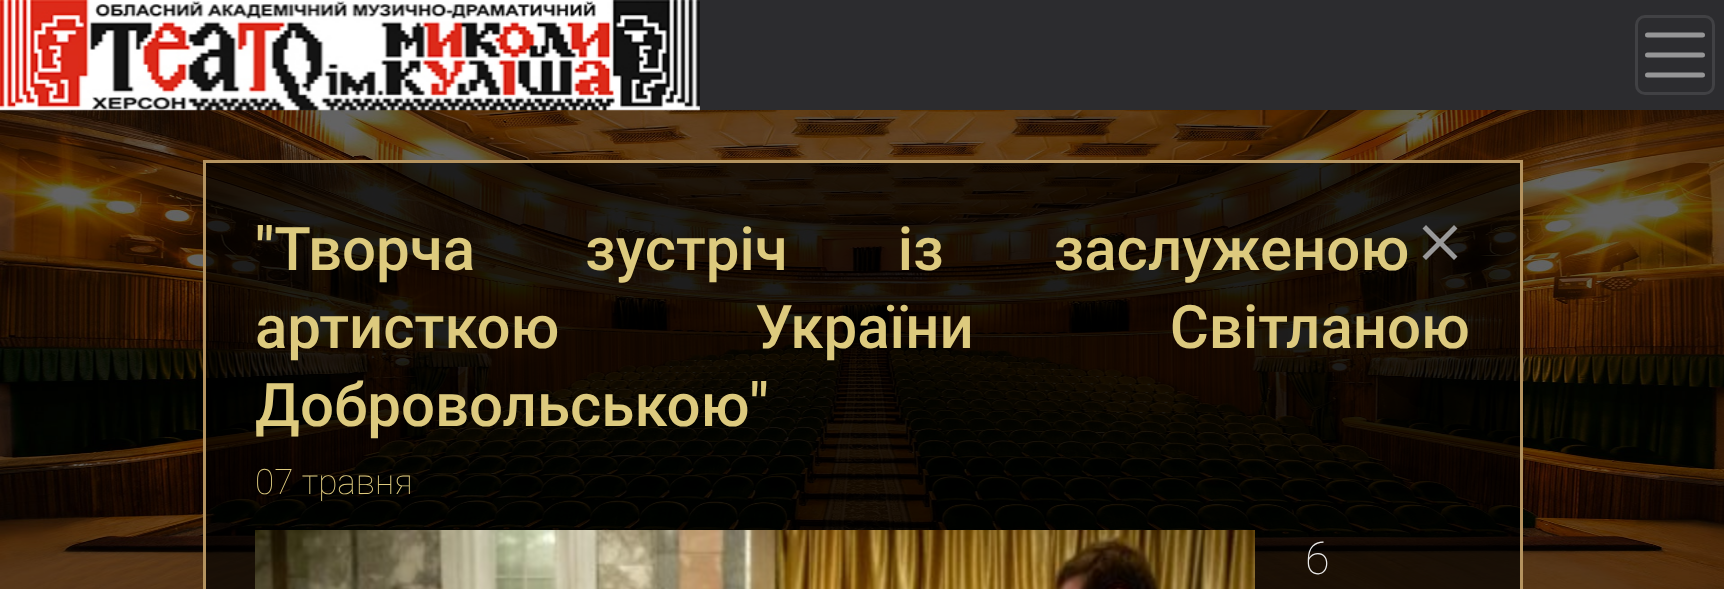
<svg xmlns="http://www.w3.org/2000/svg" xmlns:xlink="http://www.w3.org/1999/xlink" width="1724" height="589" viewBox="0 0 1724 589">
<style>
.cls-1{font:500 60px Roboto;fill:#ddca7e}
.cls-2{font:100 35px Roboto;fill:#ddca7e}
.cls-3{font:100 45px Roboto;fill:#ebebeb}
</style>
<rect width="100%" height="100%" fill="#ffffff"/>
<rect fill="#2c2c2f" x="0" y="0" width="1724" height="110"/>
<image xlink:href="image1.png" x="0" y="110" width="1724" height="479"/>
<image xlink:href="image0.png" x="0" y="0" width="700" height="111"/>
<rect fill="none" stroke="#414144" stroke-width="3" x="1636.5" y="16.5" width="77" height="77" rx="8.5"/>
<path fill="none" stroke="#969697" stroke-width="5" stroke-linecap="round" d="M1647.5 35H1702.5M1647.5 55H1702.5M1647.5 75H1702.5"/>
<rect fill="#000000" fill-opacity="0.7" stroke="#b4935f" stroke-width="3" x="204.5" y="161.5" width="1317" height="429"/>
<path fill="#999999" d="M1457.5 228.5L1443.5 242.5L1457.5 256.5L1454 260L1440 246L1426 260L1422.5 256.5L1436.5 242.5L1422.5 228.5L1426 225L1440 239L1454 225Z"/>
<image xlink:href="image2.png" x="255" y="530" width="1000" height="59"/>
<text class="cls-1"><tspan x="255" y="270" word-spacing="95">"Творча зустріч із заслуженою</tspan><tspan x="255" y="348" word-spacing="181">артисткою України Світланою</tspan><tspan x="255" y="426">Добровольською"</tspan></text>
<text class="cls-2" x="255" y="494">07 травня</text>
<text class="cls-3" x="1305" y="574">6</text>
</svg>
